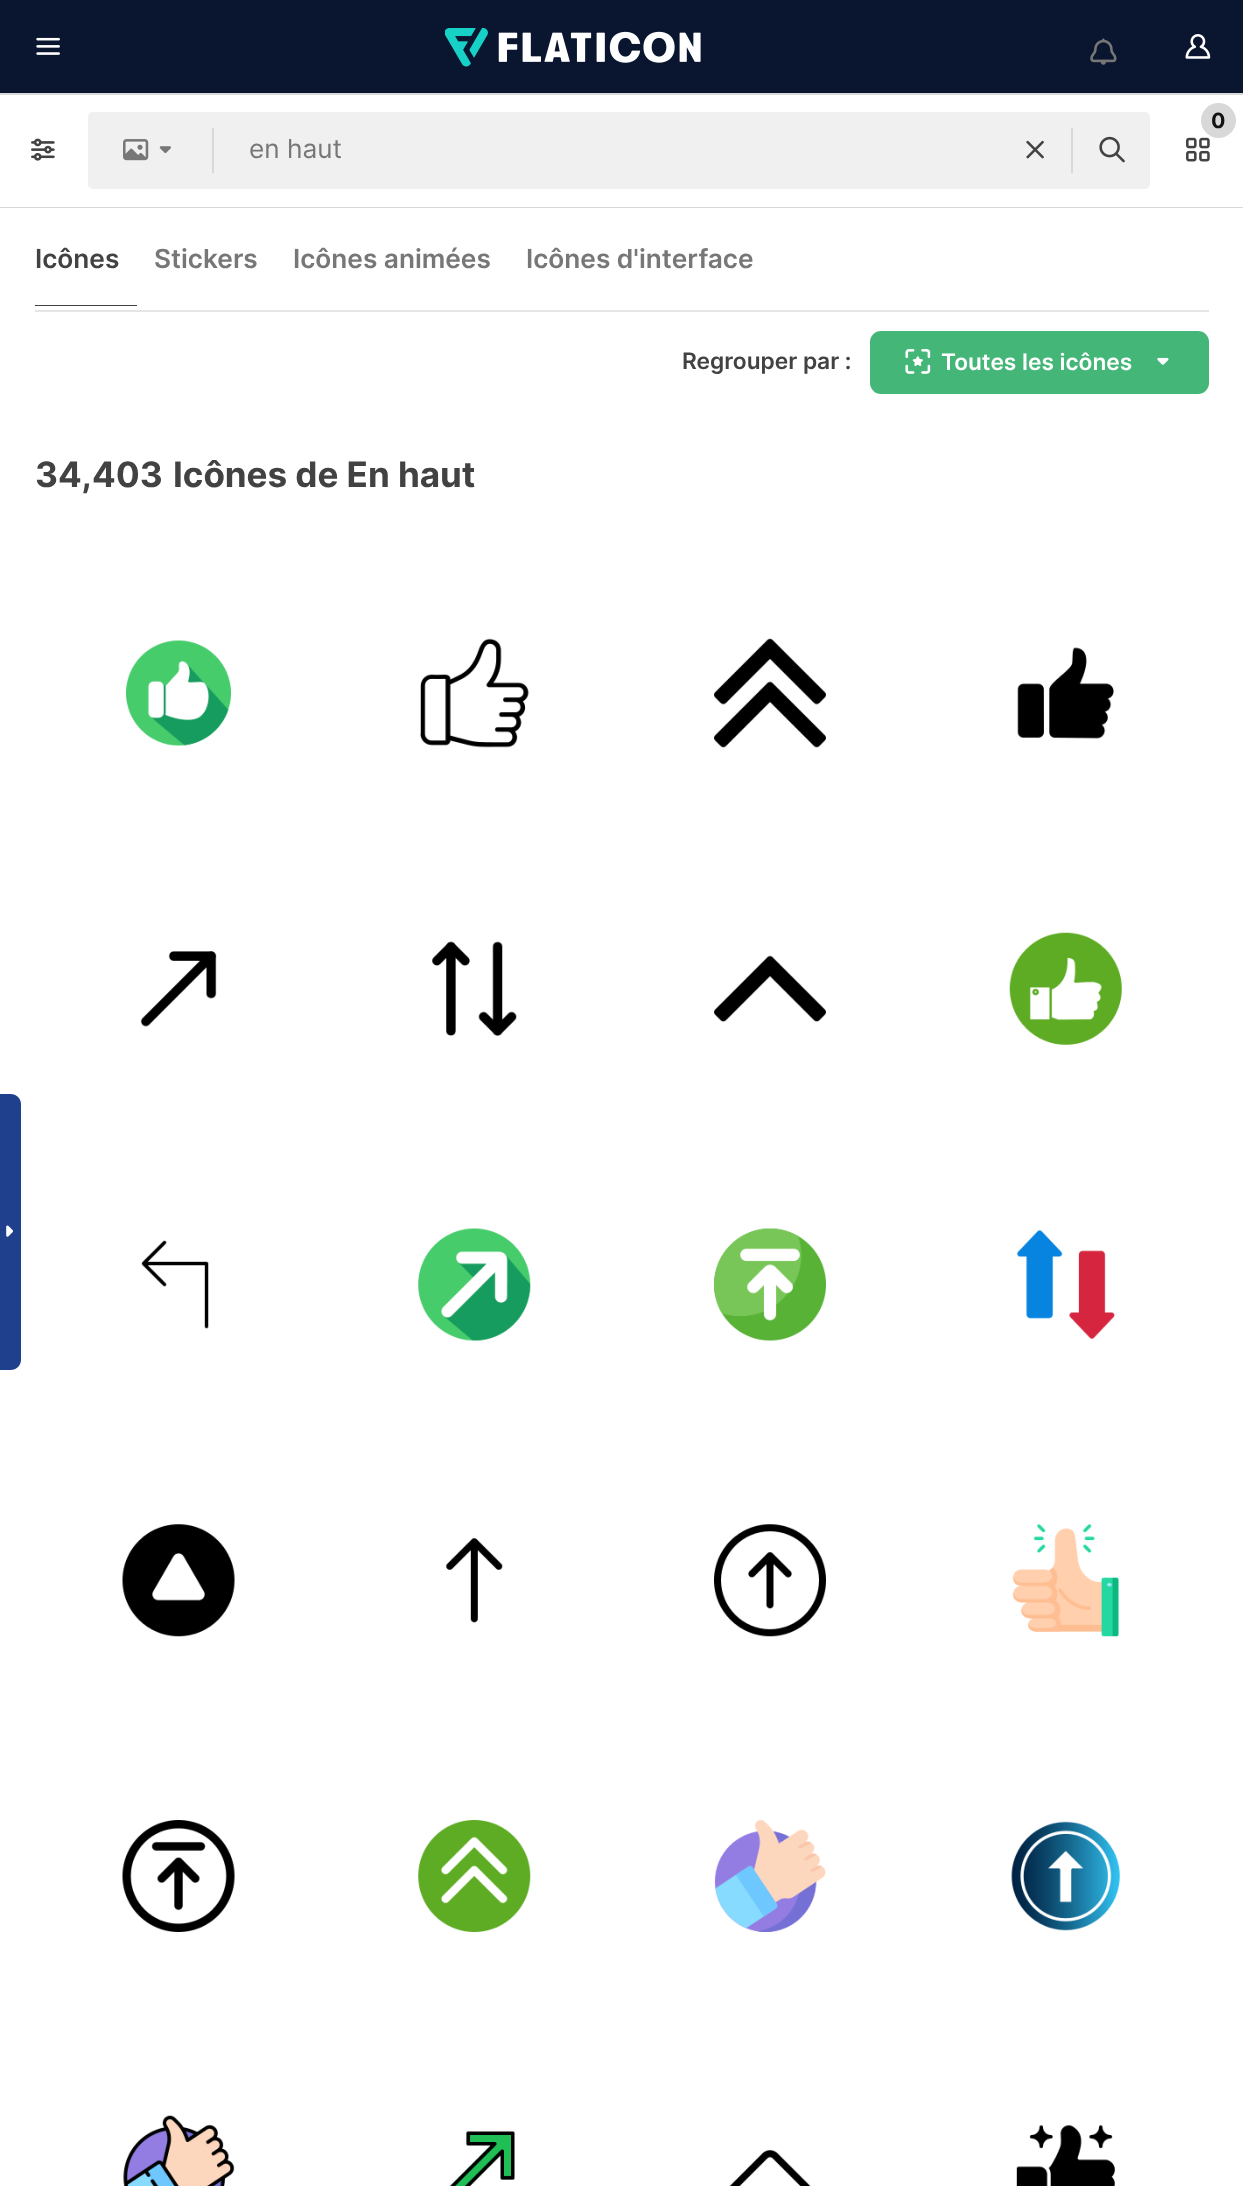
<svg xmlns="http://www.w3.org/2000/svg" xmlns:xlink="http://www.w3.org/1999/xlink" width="1243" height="2186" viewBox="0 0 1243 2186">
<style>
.cls-1{font:bold 21px Inter;fill:#121212}
.cls-2{font:26.25px Inter;fill:#777777}
.cls-3{font:600 26.25px Inter;fill:#424242}
.cls-4{font:600 26.25px Inter;fill:#777777}
.cls-5{font:600 22.75px Inter;fill:#424242}
.cls-6{font:600 22.75px Inter;fill:#ffffff}
.cls-7{font:bold 35px Inter;fill:#424242}
</style>
<rect width="100%" height="100%" fill="#ffffff"/>
<rect fill="#0a152f" x="0" y="0" width="1243" height="93"/>
<image xlink:href="image0.png" x="36" y="37" width="24" height="18"/>
<image xlink:href="image1.png" x="445" y="28" width="256" height="39"/>
<image xlink:href="image2.png" x="1090" y="38" width="27" height="27"/>
<image xlink:href="image3.png" x="1185" y="34" width="26" height="25"/>
<rect fill="none" stroke="#d8d8d8" stroke-width="2" x="-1" y="94" width="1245" height="113"/>
<rect fill="#ffffff" x="0" y="206" width="1243" height="1"/>
<image xlink:href="image4.png" x="1186" y="137" width="24" height="25"/>
<circle fill="#d8d8d8" cx="1218.5" cy="120.5" r="17.5"/>
<image xlink:href="image5.png" x="31" y="138" width="24" height="23"/>
<rect fill="#f0f0f0" x="88" y="112" width="1062" height="77" rx="5"/>
<image xlink:href="image6.png" x="123" y="139" width="26" height="22"/>
<image xlink:href="image7.png" x="159" y="146" width="12" height="7"/>
<rect fill="#d8d8d8" x="212" y="128" width="2" height="45"/>
<image xlink:href="image8.png" x="1026" y="140" width="18" height="19"/>
<rect fill="#d8d8d8" x="1071" y="128" width="2" height="45"/>
<image xlink:href="image9.png" x="1099" y="136" width="26" height="27"/>
<rect fill="#424242" x="35" y="305" width="102" height="1"/>
<rect fill="#44b678" x="870" y="331" width="339" height="63" rx="11"/>
<image xlink:href="image10.png" x="905" y="349" width="26" height="25"/>
<image xlink:href="image11.png" x="1157" y="357" width="12" height="8"/>
<rect fill="#e5e5e5" x="35" y="310" width="1174" height="2"/>
<image xlink:href="image12.png" x="126" y="640" width="105" height="106"/>
<image xlink:href="image13.png" x="420" y="638" width="109" height="110"/>
<image xlink:href="image14.png" x="714" y="638" width="112" height="110"/>
<image xlink:href="image15.png" x="1017" y="647" width="97" height="92"/>
<image xlink:href="image16.png" x="140" y="951" width="77" height="76"/>
<image xlink:href="image17.png" x="432" y="941" width="85" height="95"/>
<image xlink:href="image18.png" x="714" y="955" width="112" height="67"/>
<image xlink:href="image19.png" x="1009" y="932" width="113" height="113"/>
<image xlink:href="image20.png" x="141" y="1240" width="68" height="89"/>
<image xlink:href="image21.png" x="418" y="1228" width="113" height="113"/>
<image xlink:href="image22.png" x="714" y="1228" width="112" height="113"/>
<image xlink:href="image23.png" x="1016" y="1230" width="99" height="109"/>
<image xlink:href="image24.png" x="122" y="1524" width="113" height="113"/>
<image xlink:href="image25.png" x="446" y="1538" width="57" height="85"/>
<image xlink:href="image26.png" x="714" y="1524" width="112" height="113"/>
<image xlink:href="image27.png" x="1012" y="1524" width="108" height="113"/>
<image xlink:href="image28.png" x="122" y="1820" width="113" height="112"/>
<image xlink:href="image29.png" x="418" y="1820" width="113" height="112"/>
<image xlink:href="image30.png" x="714" y="1820" width="112" height="112"/>
<image xlink:href="image31.png" x="1011" y="1821" width="109" height="110"/>
<image xlink:href="image32.png" x="123" y="2115" width="112" height="71"/>
<image xlink:href="image33.png" x="449" y="2131" width="66" height="55"/>
<image xlink:href="image34.png" x="729" y="2149" width="82" height="37"/>
<image xlink:href="image35.png" x="1016" y="2125" width="99" height="61"/>
<path fill="#1f408c" d="M0 1094H10.5C16.5 1094 21 1098.5 21 1104.5V1359.5C21 1365.5 16.5 1370 10.5 1370H0Z"/>
<image xlink:href="image36.png" x="6" y="1225" width="7" height="12"/>
<text class="cls-1" x="1211" y="128">0</text>
<text class="cls-2" x="249" y="158">en haut</text>
<text class="cls-3" x="35" y="268">Icônes</text>
<text class="cls-4" x="154" y="268">Stickers</text>
<text class="cls-4" x="293" y="268">Icônes animées</text>
<text class="cls-4" x="526" y="268">Icônes d'interface</text>
<text class="cls-5" x="682" y="369">Regrouper par :</text>
<text class="cls-6" x="941" y="370">Toutes les icônes</text>
<text class="cls-7" x="35" y="487">34,403</text>
<text class="cls-7" x="173" y="487">Icônes de En haut</text>
</svg>
